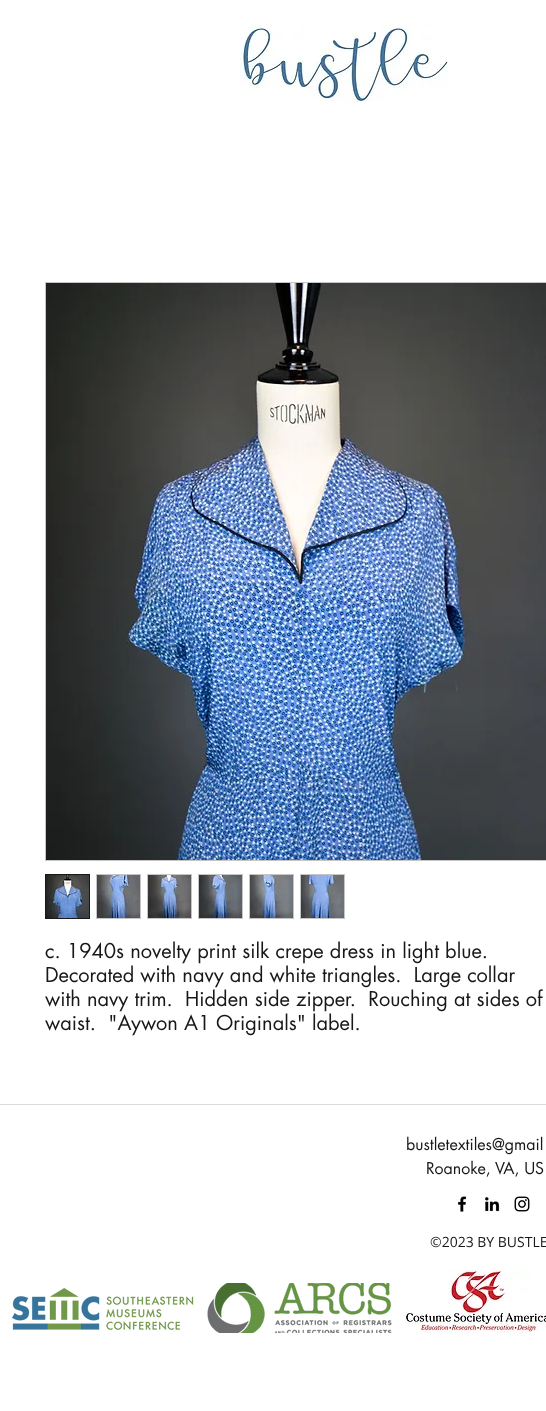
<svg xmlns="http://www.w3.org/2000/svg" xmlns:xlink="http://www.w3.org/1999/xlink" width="546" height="1411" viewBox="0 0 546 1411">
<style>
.cls-1{font:20px futura;fill:#181818}
.cls-2{font:16px futura;fill:#181818}
.cls-3{font:14px Open Sans;fill:#181818}
</style>
<rect width="100%" height="100%" fill="#ffffff"/>
<image xlink:href="image0.png" x="240" y="24" width="208" height="78"/>
<rect fill="none" stroke="#c5c5c5" x="45.5" y="282.5" width="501" height="578"/>
<image xlink:href="image1.png" x="46" y="283" width="500" height="577"/>
<rect fill="none" stroke="#181818" x="45.5" y="874.5" width="44" height="44"/>
<image xlink:href="image2.png" x="46" y="875" width="43" height="43"/>
<rect fill="#c5c5c5" x="96" y="874" width="45" height="45"/>
<image xlink:href="image3.png" x="97" y="875" width="43" height="43"/>
<rect fill="#c5c5c5" x="147" y="874" width="45" height="45"/>
<image xlink:href="image4.png" x="148" y="875" width="43" height="43"/>
<rect fill="#c5c5c5" x="198" y="874" width="45" height="45"/>
<image xlink:href="image5.png" x="199" y="875" width="43" height="43"/>
<rect fill="#c5c5c5" x="249" y="874" width="45" height="45"/>
<image xlink:href="image6.png" x="250" y="875" width="43" height="43"/>
<rect fill="#c5c5c5" x="300" y="874" width="45" height="45"/>
<image xlink:href="image7.png" x="301" y="875" width="43" height="43"/>
<rect fill="#dcdcdc" x="0" y="1104" width="546" height="1"/>
<image xlink:href="image8.png" x="458" y="1196" width="9" height="16"/>
<image xlink:href="image9.png" x="485" y="1197" width="15" height="15"/>
<image xlink:href="image10.png" x="514" y="1196" width="16" height="16"/>
<image xlink:href="image11.png" x="12" y="1288" width="182" height="42"/>
<image xlink:href="image12.png" x="207" y="1283" width="185" height="50"/>
<image xlink:href="image13.png" x="404" y="1269" width="142" height="64"/>
<text class="cls-1" xml:space="preserve"><tspan x="45" y="958">c. 1940s novelty print silk crepe dress in light blue.</tspan><tspan x="45" y="982">Decorated with navy and white triangles.  Large collar</tspan><tspan x="45" y="1006">with navy trim.  Hidden side zipper.  Rouching at sides of</tspan><tspan x="45" y="1030">waist.  "Aywon A1 Originals" label.</tspan></text>
<text class="cls-2" x="406" y="1150">bustletextiles@gmail</text>
<text class="cls-2" x="426" y="1174">Roanoke, VA, US</text>
<text class="cls-3" x="430" y="1247">©2023 BY BUSTLE</text>
</svg>
